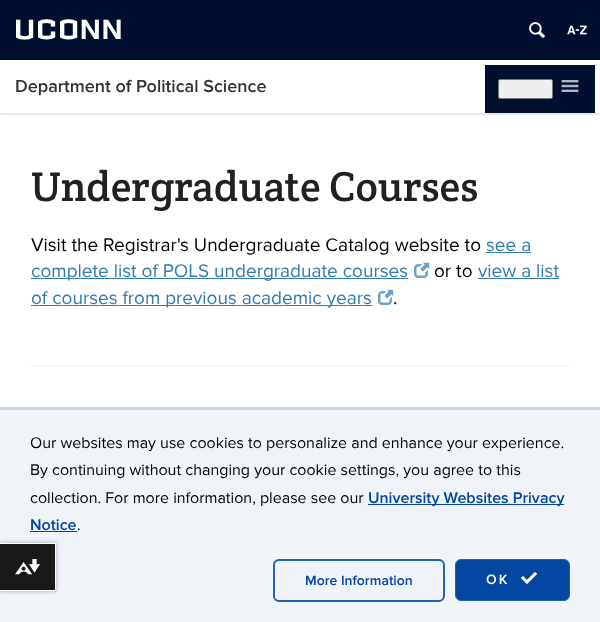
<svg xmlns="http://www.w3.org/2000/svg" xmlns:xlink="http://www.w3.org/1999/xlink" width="600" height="622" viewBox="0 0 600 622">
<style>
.cls-1{font:32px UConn;letter-spacing:3px;fill:#ffffff}
.cls-2{font:600 18px Proxima Nova;fill:#333333}
.cls-3{font:42px Crete Round;fill:#212121}
.cls-4{font:19px Proxima Nova;fill:#000000}
.cls-5{font:19px Proxima Nova;fill:#327aae}
.cls-6{font:16px Proxima Nova;fill:#000000}
.cls-7{font:600 16px Proxima Nova;fill:#03469f}
.cls-8{font:600 14px Proxima Nova;fill:#03469f}
.cls-9{font:600 14px Proxima Nova;letter-spacing:2px;fill:#ffffff}
</style>
<defs>
<clipPath id="clip1"><rect x="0" y="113" width="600" height="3"/></clipPath>
</defs>
<rect width="100%" height="100%" fill="#ffffff"/>
<rect fill="#000e2f" x="0" y="0" width="600" height="60"/>
<image xlink:href="image0.png" x="529" y="22" width="16" height="16"/>
<image xlink:href="image1.png" x="567" y="25" width="20" height="10"/>
<g clip-path="url(#clip1)">
<rect fill="#000000" fill-opacity="0.1" filter="blur(1px)" x="0" y="62" width="600" height="53"/>
</g>
<rect fill="#000e2f" x="485" y="65" width="110" height="48"/>
<rect fill="#efefef" stroke="#767676" x="498.5" y="79.5" width="54" height="19" rx="1.5"/>
<image xlink:href="image2.png" x="561" y="80" width="18" height="12"/>
<rect fill="#327aae" x="486" y="252" width="45" height="1"/>
<rect fill="#327aae" x="31" y="278" width="377" height="1"/>
<image xlink:href="image3.png" x="414" y="262" width="16" height="16"/>
<rect fill="#327aae" x="478" y="278" width="81" height="1"/>
<rect fill="#327aae" x="31" y="305" width="341" height="1"/>
<image xlink:href="image3.png" x="378" y="289" width="16" height="16"/>
<rect fill="#eeeeee" x="31" y="365" width="538" height="1"/>
<rect fill="#f0f3f7" x="0" y="410" width="600" height="212"/>
<rect fill="#cfd5dd" x="0" y="407" width="600" height="3"/>
<rect fill="#03469f" x="368" y="504" width="196" height="1"/>
<rect fill="#03469f" x="30" y="531" width="47" height="1"/>
<rect fill="none" stroke="#2061b6" stroke-width="2" x="274" y="560" width="170" height="41" rx="5"/>
<rect fill="#03469f" stroke="#2061b6" x="455.5" y="559.5" width="114" height="41" rx="5.5"/>
<image xlink:href="image4.png" x="521" y="572" width="16" height="12"/>
<rect fill="#000000" fill-opacity="0.3" filter="blur(2.5px)" x="0" y="543" width="56" height="48"/>
<rect fill="#181819" x="0" y="544" width="55" height="46"/>
<rect fill="#ffffff" x="0" y="543" width="56" height="1"/>
<rect fill="#ffffff" x="55" y="543" width="1" height="48"/>
<rect fill="#ffffff" x="0" y="590" width="56" height="1"/>
<image xlink:href="image5.png" x="15" y="559" width="25" height="16"/>
<text class="cls-1" x="16" y="39">UCONN</text>
<text class="cls-2" x="15" y="92">Department of Political Science</text>
<text class="cls-3" x="31" y="201">Undergraduate Courses</text>
<text class="cls-4" x="31" y="251">Visit the Registrar's Undergraduate Catalog website to</text>
<text class="cls-5" x="486" y="251">see a</text>
<text class="cls-5" x="31" y="277">complete list of POLS undergraduate courses</text>
<text class="cls-5" x="478" y="277">view a list</text>
<text class="cls-5" x="31" y="304">of courses from previous academic years</text>
<text class="cls-4" x="434" y="277">or to</text>
<text class="cls-4" x="393" y="304">.</text>
<text class="cls-6"><tspan x="30" y="448">Our websites may use cookies to personalize and enhance your experience.</tspan><tspan x="30" y="475">By continuing without changing your cookie settings, you agree to this</tspan><tspan x="30" y="503">collection. For more information, please see our</tspan></text>
<text class="cls-7" x="368" y="503">University Websites Privacy</text>
<text class="cls-7" x="30" y="530">Notice</text>
<text class="cls-6" x="77" y="530">.</text>
<text class="cls-8" x="305" y="585">More Information</text>
<text class="cls-9" x="486" y="584">OK</text>
</svg>
